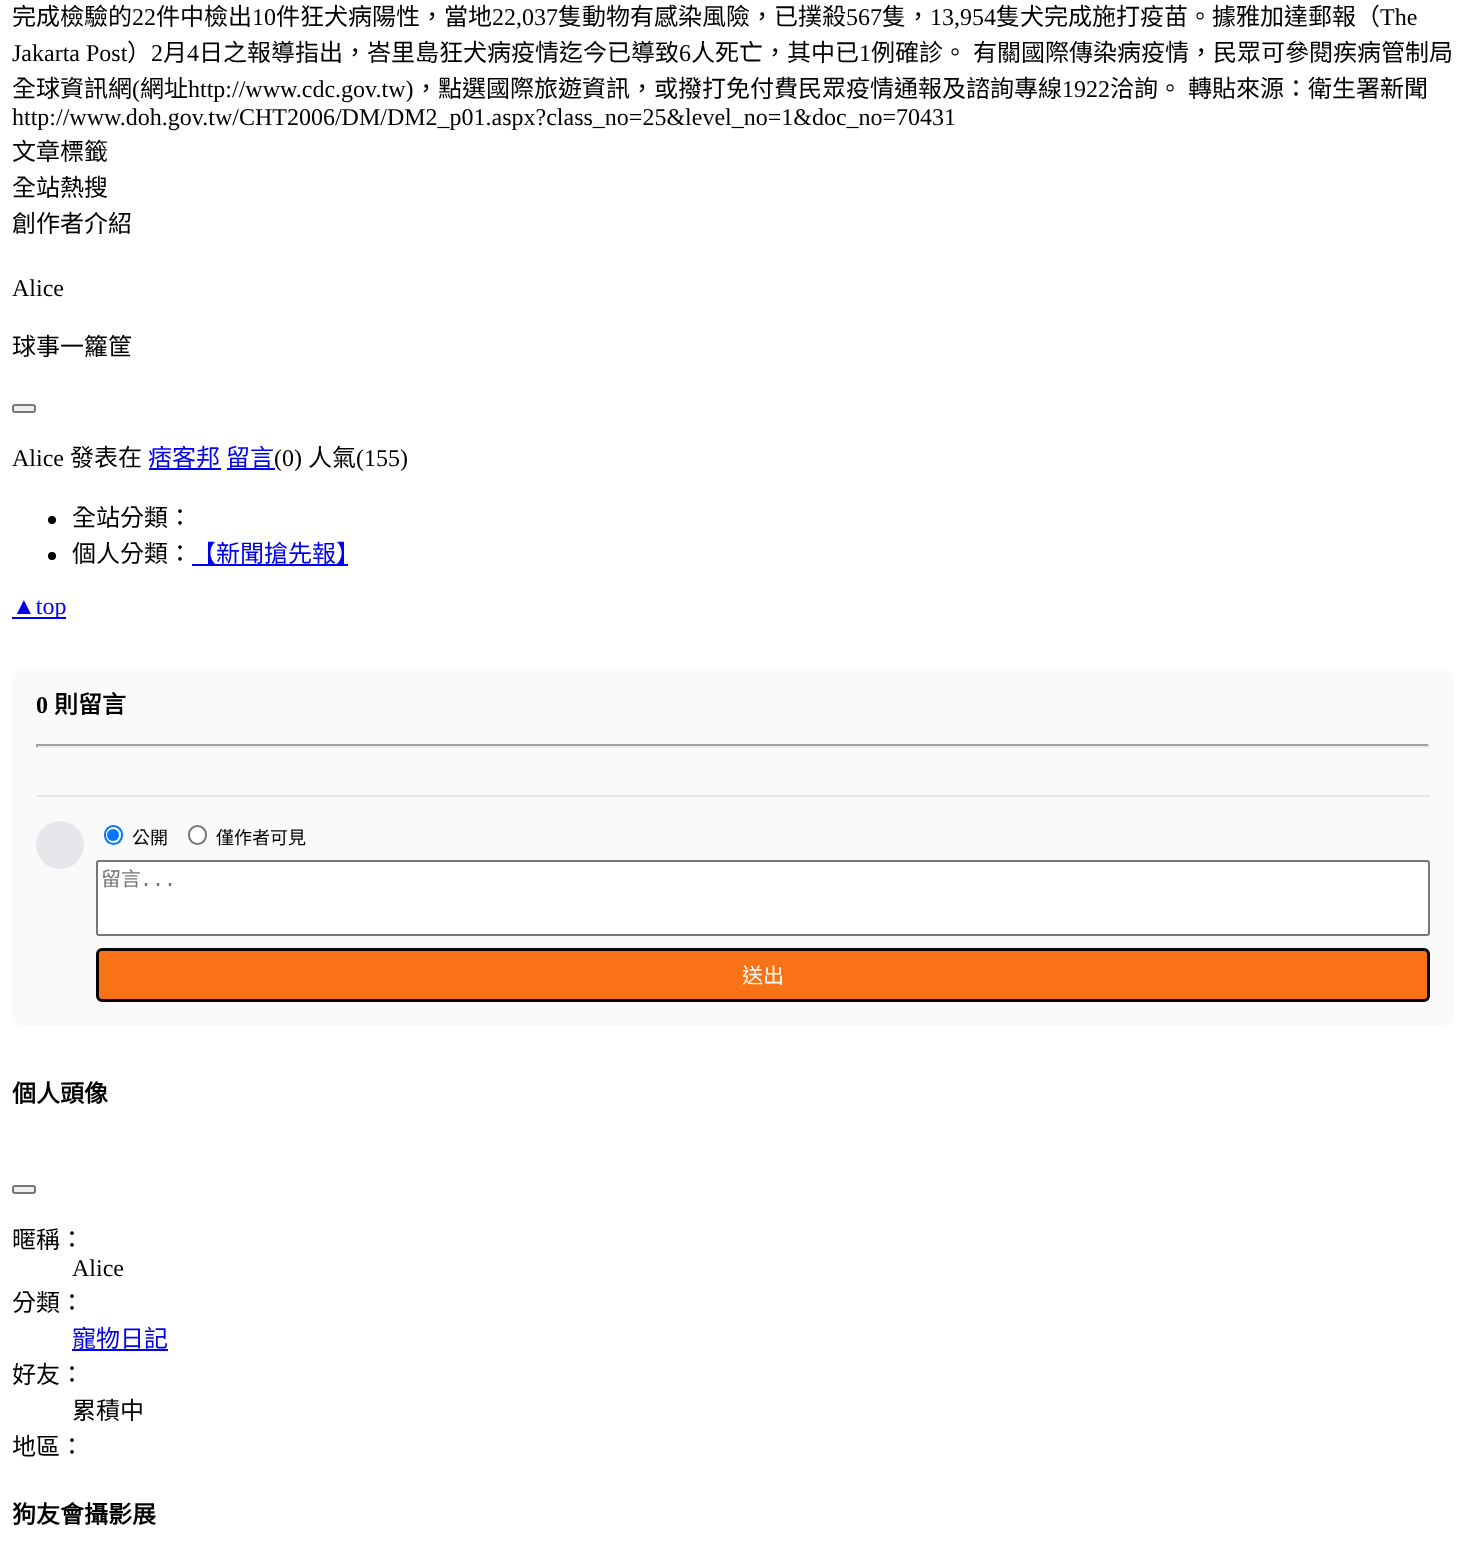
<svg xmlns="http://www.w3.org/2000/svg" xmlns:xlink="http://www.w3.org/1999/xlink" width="1465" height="1549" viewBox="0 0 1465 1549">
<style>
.cls-1{font:24px Noto Sans CJK TC;fill:#000000}
.cls-2{font:24px Liberation Serif;fill:#000000}
.cls-3{font:24px Noto Sans CJK TC;fill:#0000ee}
.cls-4{font:24px Liberation Serif;fill:#0000ee}
.cls-5{font:bold 24px Liberation Serif;fill:#000000}
.cls-6{font:bold 24px Noto Sans CJK TC;fill:#000000}
.cls-7{font:18px Noto Sans CJK TC;fill:#000000}
.cls-8{font:20px Noto Sans CJK TC;fill:#757575}
.cls-9{font:20px DejaVu Sans Mono;fill:#757575}
.cls-10{font:21px Noto Sans CJK TC;fill:#ffffff}
</style>
<rect width="100%" height="100%" fill="#ffffff"/>
<rect fill="#efefef" stroke="#767676" stroke-width="2" x="13" y="405" width="22" height="7" rx="2"/>
<rect fill="#0000ee" x="149" y="468" width="72" height="2"/>
<rect fill="#0000ee" x="227" y="468" width="48" height="2"/>
<circle fill="#000000" cx="52" cy="520" r="4"/>
<circle fill="#000000" cx="52" cy="556" r="4"/>
<rect fill="#0000ee" x="192" y="564" width="156" height="2"/>
<rect fill="#0000ee" x="12" y="617" width="54" height="2"/>
<rect fill="#fafafa" x="12" y="669" width="1442" height="357" rx="12"/>
<rect fill="#9f9f9f" x="36" y="744" width="1394" height="2"/>
<rect fill="#eeeeee" x="1428" y="744" width="2" height="3"/>
<rect fill="#eeeeee" x="36" y="746" width="1394" height="2"/>
<rect fill="#9f9f9f" x="36" y="744" width="2" height="3"/>
<rect fill="#e5e7eb" x="36" y="795" width="1394" height="2"/>
<circle fill="#e5e7eb" cx="60" cy="845" r="24"/>
<rect fill="#ffffff" stroke="#0075ff" stroke-width="2" x="105" y="826" width="17" height="18" rx="8.5"/>
<circle fill="#0075ff" cx="113" cy="835" r="6"/>
<rect fill="#ffffff" stroke="#767676" stroke-width="2" x="189" y="826" width="17" height="18" rx="8.5"/>
<rect fill="#ffffff" stroke="#767676" stroke-width="2" x="97" y="861" width="1332" height="74" rx="2"/>
<rect fill="#f97316" stroke="#000000" stroke-width="3" x="97.5" y="949.5" width="1331" height="51" rx="4.5"/>
<rect fill="#efefef" stroke="#767676" stroke-width="2" x="13" y="1186" width="22" height="7" rx="2"/>
<rect fill="#0000ee" x="72" y="1349" width="96" height="2"/>
<text class="cls-1" x="12" y="25">完成檢驗的</text>
<text class="cls-2" x="132" y="25">22</text>
<text class="cls-1" x="156" y="25">件中檢出</text>
<text class="cls-2" x="252" y="25">10</text>
<text class="cls-1" x="276" y="25">件狂犬病陽性，當地</text>
<text class="cls-2" x="492" y="25">22,037</text>
<text class="cls-1" x="558" y="25">隻動物有感染風險，已撲殺</text>
<text class="cls-2" x="846" y="25">567</text>
<text class="cls-1" x="882" y="25">隻，</text>
<text class="cls-2" x="930" y="25">13,954</text>
<text class="cls-1" x="996" y="25">隻犬完成施打疫苗。據雅加達郵報（</text>
<text class="cls-2" x="1380" y="25">The</text>
<text class="cls-2" x="12" y="61">Jakarta Post</text>
<text class="cls-1" x="127" y="61">）</text>
<text class="cls-2" x="151" y="61">2</text>
<text class="cls-1" x="163" y="61">月</text>
<text class="cls-2" x="187" y="61">4</text>
<text class="cls-1" x="199" y="61">日之報導指出，峇里島狂犬病疫情迄今已導致</text>
<text class="cls-2" x="679" y="61">6</text>
<text class="cls-1" x="691" y="61">人死亡，其中已</text>
<text class="cls-2" x="859" y="61">1</text>
<text class="cls-1" x="871" y="61">例確診。</text>
<text class="cls-1" x="973" y="61">有關國際傳染病疫情，民眾可參閱疾病管制局</text>
<text class="cls-1" x="12" y="97">全球資訊網</text>
<text class="cls-2" x="132" y="97">(</text>
<text class="cls-1" x="140" y="97">網址</text>
<text class="cls-2" x="188" y="97">http://www.cdc.gov.tw)</text>
<text class="cls-1" x="414" y="97">，點選國際旅遊資訊，或撥打免付費民眾疫情通報及諮詢專線</text>
<text class="cls-2" x="1062" y="97">1922</text>
<text class="cls-1" x="1110" y="97">洽詢。</text>
<text class="cls-1" x="1188" y="97">轉貼來源：衛生署新聞</text>
<text class="cls-2" x="12" y="125">http://www.doh.gov.tw/CHT2006/DM/DM2_p01.aspx?class_no=25&amp;level_no=1&amp;doc_no=70431</text>
<text class="cls-1"><tspan x="12" y="160">文章標籤</tspan><tspan x="12" y="196">全站熱搜</tspan><tspan x="12" y="232">創作者介紹</tspan></text>
<text class="cls-2" x="12" y="296">Alice</text>
<text class="cls-1" x="12" y="355">球事一籮筐</text>
<text class="cls-2" x="12" y="466">Alice</text>
<text class="cls-1" x="70" y="466">發表在</text>
<text class="cls-3" x="148" y="466">痞客邦</text>
<text class="cls-3" x="226" y="466">留言</text>
<text class="cls-2" x="274" y="466">(0)</text>
<text class="cls-1" x="308" y="466">人氣</text>
<text class="cls-2" x="356" y="466">(155)</text>
<text class="cls-1"><tspan x="72" y="526">全站分類：</tspan><tspan x="72" y="562">個人分類：</tspan></text>
<text class="cls-3" x="192" y="562">【新聞搶先報】</text>
<text class="cls-4" x="12" y="614">▲top</text>
<text class="cls-5" x="36" y="713">0</text>
<text class="cls-6" x="54" y="713">則留言</text>
<text class="cls-7" x="132" y="844">公開</text>
<text class="cls-7" x="216" y="844">僅作者可見</text>
<text class="cls-8" x="101" y="886">留言</text>
<text class="cls-9" x="140" y="886">...</text>
<text class="cls-10" x="742" y="983">送出</text>
<text class="cls-6" x="12" y="1102">個人頭像</text>
<text class="cls-1" x="12" y="1248">暱稱：</text>
<text class="cls-2" x="72" y="1276">Alice</text>
<text class="cls-1" x="12" y="1311">分類：</text>
<text class="cls-3" x="72" y="1347">寵物日記</text>
<text class="cls-1" x="12" y="1383">好友：</text>
<text class="cls-1" x="72" y="1419">累積中</text>
<text class="cls-1" x="12" y="1455">地區：</text>
<text class="cls-6" x="12" y="1523">狗友會攝影展</text>
</svg>
